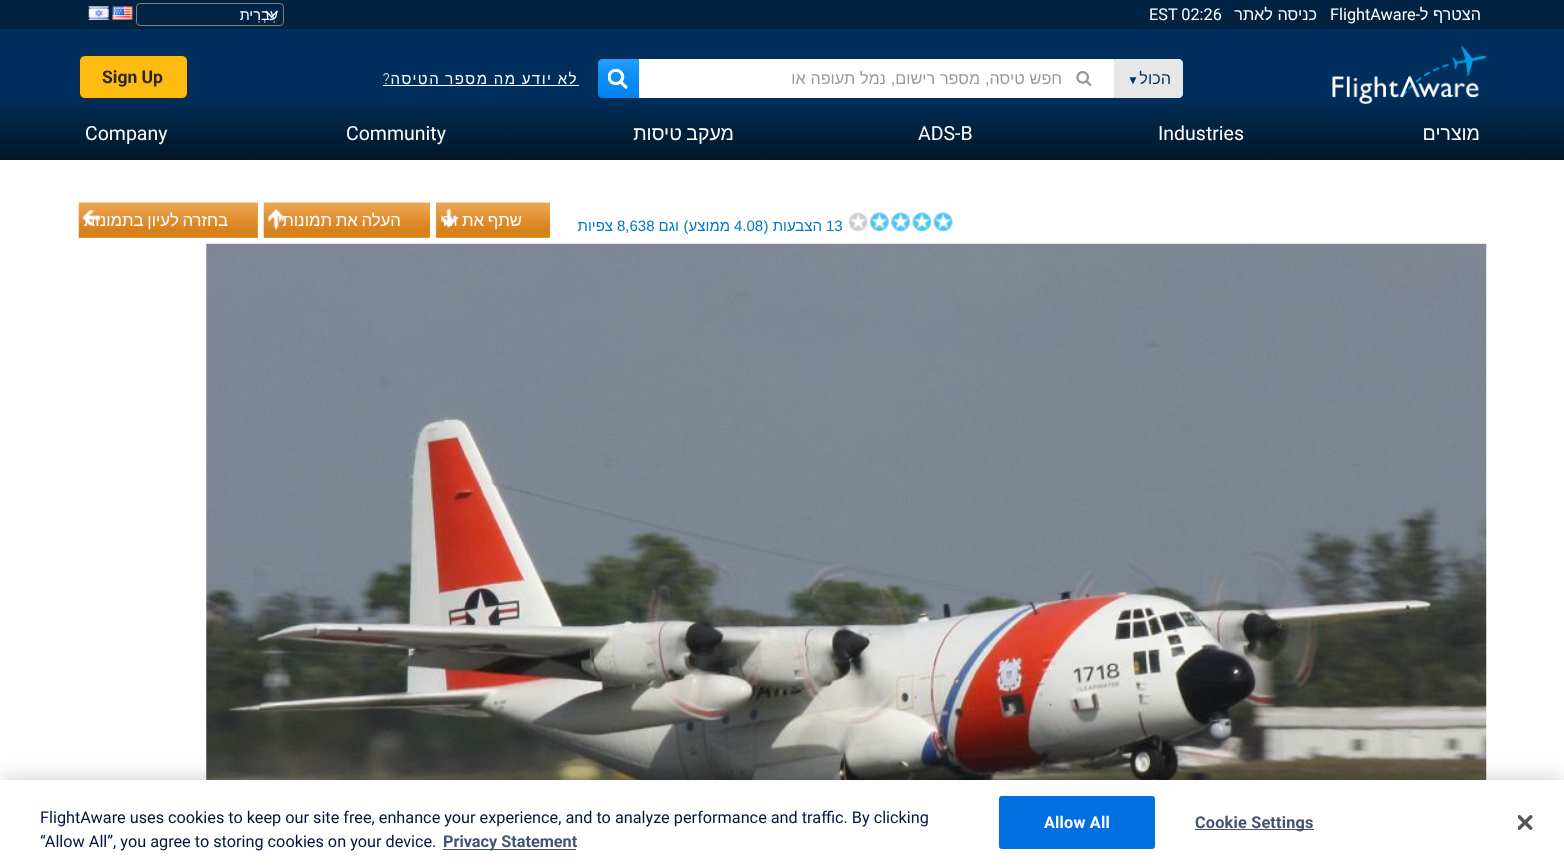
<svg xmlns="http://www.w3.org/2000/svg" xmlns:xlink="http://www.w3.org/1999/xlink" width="1564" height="868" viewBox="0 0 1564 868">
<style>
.cls-1{font:14.5px Liberation Sans;direction:rtl;fill:#ffffff}
.cls-2{font:16.25px Roboto;fill:#ffffff}
.cls-3{font:16.25px Liberation Sans;direction:rtl;fill:#ffffff}
.cls-4{font:16.25px Roboto;direction:rtl;fill:#ffffff}
.cls-5{font:bold 17.5px Roboto;fill:#272727}
.cls-6{font:300 15px Roboto;letter-spacing:1.5px;direction:rtl;fill:#ffffff}
.cls-7{font:15px Liberation Sans;letter-spacing:1.5px;direction:rtl;fill:#ffffff}
.cls-8{font:16.25px Liberation Sans;direction:rtl;fill:#999999}
.cls-9{font:12px Liberation Sans;fill:#002f5d}
.cls-10{font:16.25px Liberation Sans;direction:rtl;fill:#002f5d}
.cls-11{font:19.5px Roboto;fill:#ffffff}
.cls-12{font:19.5px Liberation Sans;direction:rtl;fill:#ffffff}
.cls-13{font:16.75px Liberation Sans;direction:rtl;fill:#ffffff}
.cls-14{font:15px Liberation Sans;direction:rtl;fill:#0077cc}
.cls-15{font:15px Liberation Sans;fill:#0077cc}
.cls-16{font:16.25px Roboto;fill:#00153d}
.cls-17{font:bold 16.25px Roboto;fill:#42526f}
.cls-18{font:bold 16.25px Roboto;letter-spacing:0.2px;fill:#ffffff}
.cls-19{font:bold 16.25px Roboto;letter-spacing:0.2px;fill:#42526f}
</style>
<defs>
<linearGradient id="g1" gradientUnits="userSpaceOnUse" x1="783" y1="0" x2="783" y2="160"><stop offset="0" stop-color="#002f5d"/><stop offset="0.6" stop-color="#002f5d"/><stop offset="1" stop-color="#021624"/></linearGradient>
<linearGradient id="g2" gradientUnits="userSpaceOnUse" x1="618" y1="98" x2="618" y2="59"><stop offset="0" stop-color="#0084f0"/><stop offset="0.66" stop-color="#1291f8"/><stop offset="1" stop-color="#249dff"/></linearGradient>
</defs>
<rect width="100%" height="100%" fill="#ffffff"/>
<rect fill="#888888" filter="blur(0.5px)" x="1" y="3" width="1563" height="157"/>
<rect fill="url(#g1)" x="0" y="29" width="1564" height="131"/>
<rect fill="#022241" x="0" y="0" width="1564" height="29"/>
<image xlink:href="image0.png" x="88" y="6" width="21" height="14"/>
<image xlink:href="image1.png" x="112" y="6" width="21" height="14"/>
<rect fill="#022547" x="136" y="3" width="148" height="23" rx="4"/>
<path fill="none" stroke="#ffffff" stroke-width="1.5" d="M266 11L271.5 17L277.5 11"/>
<rect fill="none" stroke="#808080" x="136.5" y="3.5" width="147" height="22" rx="3.5"/>
<rect fill="#febc11" stroke="#272727" x="79.5" y="55.5" width="108" height="43" rx="5.5"/>
<rect fill="#ffffff" x="383" y="85" width="196" height="1"/>
<path fill="url(#g2)" d="M602 59H639V98H602C600 98 598 96 598 94V63C598 61 600 59 602 59Z"/>
<image xlink:href="image2.png" x="608" y="69" width="20" height="20"/>
<rect fill="#ffffff" x="639" y="59" width="475" height="39"/>
<image xlink:href="image3.png" x="1076" y="71" width="16" height="15"/>
<path fill="#e7e7e7" stroke="#e7e7e7" d="M1114.5 59.5H1179C1181 59.5 1182.5 61 1182.5 63V94C1182.5 96 1181 97.5 1179 97.5H1114.5Z"/>
<image xlink:href="image4.png" x="1332" y="46" width="155" height="58"/>
<rect fill="#eda653" x="79" y="203" width="179" height="35"/>
<image xlink:href="image5.png" x="78" y="202" width="180" height="36"/>
<image xlink:href="image6.png" x="82" y="209" width="19" height="18"/>
<rect fill="#eda653" x="264" y="237" width="166" height="1"/>
<image xlink:href="image7.png" x="263" y="202" width="167" height="36"/>
<image xlink:href="image8.png" x="267" y="208" width="17" height="20"/>
<rect fill="#eda653" x="436" y="203" width="114" height="35"/>
<image xlink:href="image9.png" x="436" y="202" width="114" height="36"/>
<image xlink:href="image10.png" x="440" y="208" width="17" height="20"/>
<image xlink:href="image11.png" x="848" y="212" width="20" height="20"/>
<image xlink:href="image12.png" x="870" y="212" width="19" height="20"/>
<image xlink:href="image13.png" x="891" y="212" width="19" height="20"/>
<image xlink:href="image14.png" x="912" y="212" width="20" height="20"/>
<image xlink:href="image15.png" x="933" y="212" width="20" height="20"/>
<image xlink:href="image16.png" x="206" y="243" width="1281" height="537"/>
<rect fill="#000000" fill-opacity="0.2" filter="blur(11px)" x="0" y="780" width="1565" height="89"/>
<rect fill="#ffffff" x="0" y="780" width="1564" height="88"/>
<rect fill="#42526f" x="443" y="849" width="133" height="1"/>
<rect fill="#0070e0" stroke="#0070e0" x="999.5" y="796.5" width="155" height="52" rx="2"/>
<rect fill="#42526f" x="1195" y="829" width="119" height="1"/>
<image xlink:href="image17.png" x="1518" y="815" width="15" height="15"/>
<text class="cls-1" x="278" y="20">עִבְרִית</text>
<text class="cls-2" x="1149" y="20">EST 02:26</text>
<text class="cls-3" x="1317" y="20">כניסה לאתר</text>
<text class="cls-2" x="1330" y="20">FlightAware</text>
<text class="cls-4" x="1420" y="20">-</text>
<text class="cls-3" x="1481" y="20">הצטרף ל</text>
<text class="cls-5" x="102" y="83">Sign Up</text>
<text class="cls-6" x="391" y="84">?</text>
<text class="cls-7" x="578" y="84" word-spacing="-0.5">לא יודע מה מספר הטיסה</text>
<text class="cls-8" x="1062" y="84" word-spacing="0.25">חפש טיסה, מספר רישום, נמל תעופה או</text>
<text class="cls-9" x="1127" y="84">▼</text>
<text class="cls-10" x="1171" y="84">הכול</text>
<text class="cls-11" x="85" y="140">Company</text>
<text class="cls-11" x="346" y="140">Community</text>
<text class="cls-12" x="734" y="140" word-spacing="-1">מעקב טיסות</text>
<text class="cls-11" x="918" y="140">ADS-B</text>
<text class="cls-11" x="1158" y="140">Industries</text>
<text class="cls-12" x="1480" y="140">מוצרים</text>
<text class="cls-13" x="228" y="226" word-spacing="-1">בחזרה לעיון בתמונות</text>
<text class="cls-13" x="401" y="226" word-spacing="-1">העלה את תמונותיך</text>
<text class="cls-13" x="522" y="226" word-spacing="-1">שתף את זה</text>
<text class="cls-14" x="613" y="231">צפיות</text>
<text class="cls-15" x="617" y="231">8,638</text>
<text class="cls-14" x="679" y="231">וגם</text>
<text class="cls-14" x="730" y="231">ממוצע)</text>
<text class="cls-15" x="734" y="231">4.08</text>
<text class="cls-14" x="822" y="231">הצבעות (</text>
<text class="cls-15" x="826" y="231">13</text>
<text class="cls-16"><tspan x="40" y="823">FlightAware uses cookies to keep our site free, enhance your experience, and to analyze performance and traffic. By clicking</tspan><tspan x="40" y="847">“Allow All”, you agree to storing cookies on your device.</tspan></text>
<text class="cls-17" x="443" y="847">Privacy Statement</text>
<text class="cls-18" x="1044" y="828">Allow All</text>
<text class="cls-19" x="1195" y="828">Cookie Settings</text>
</svg>
